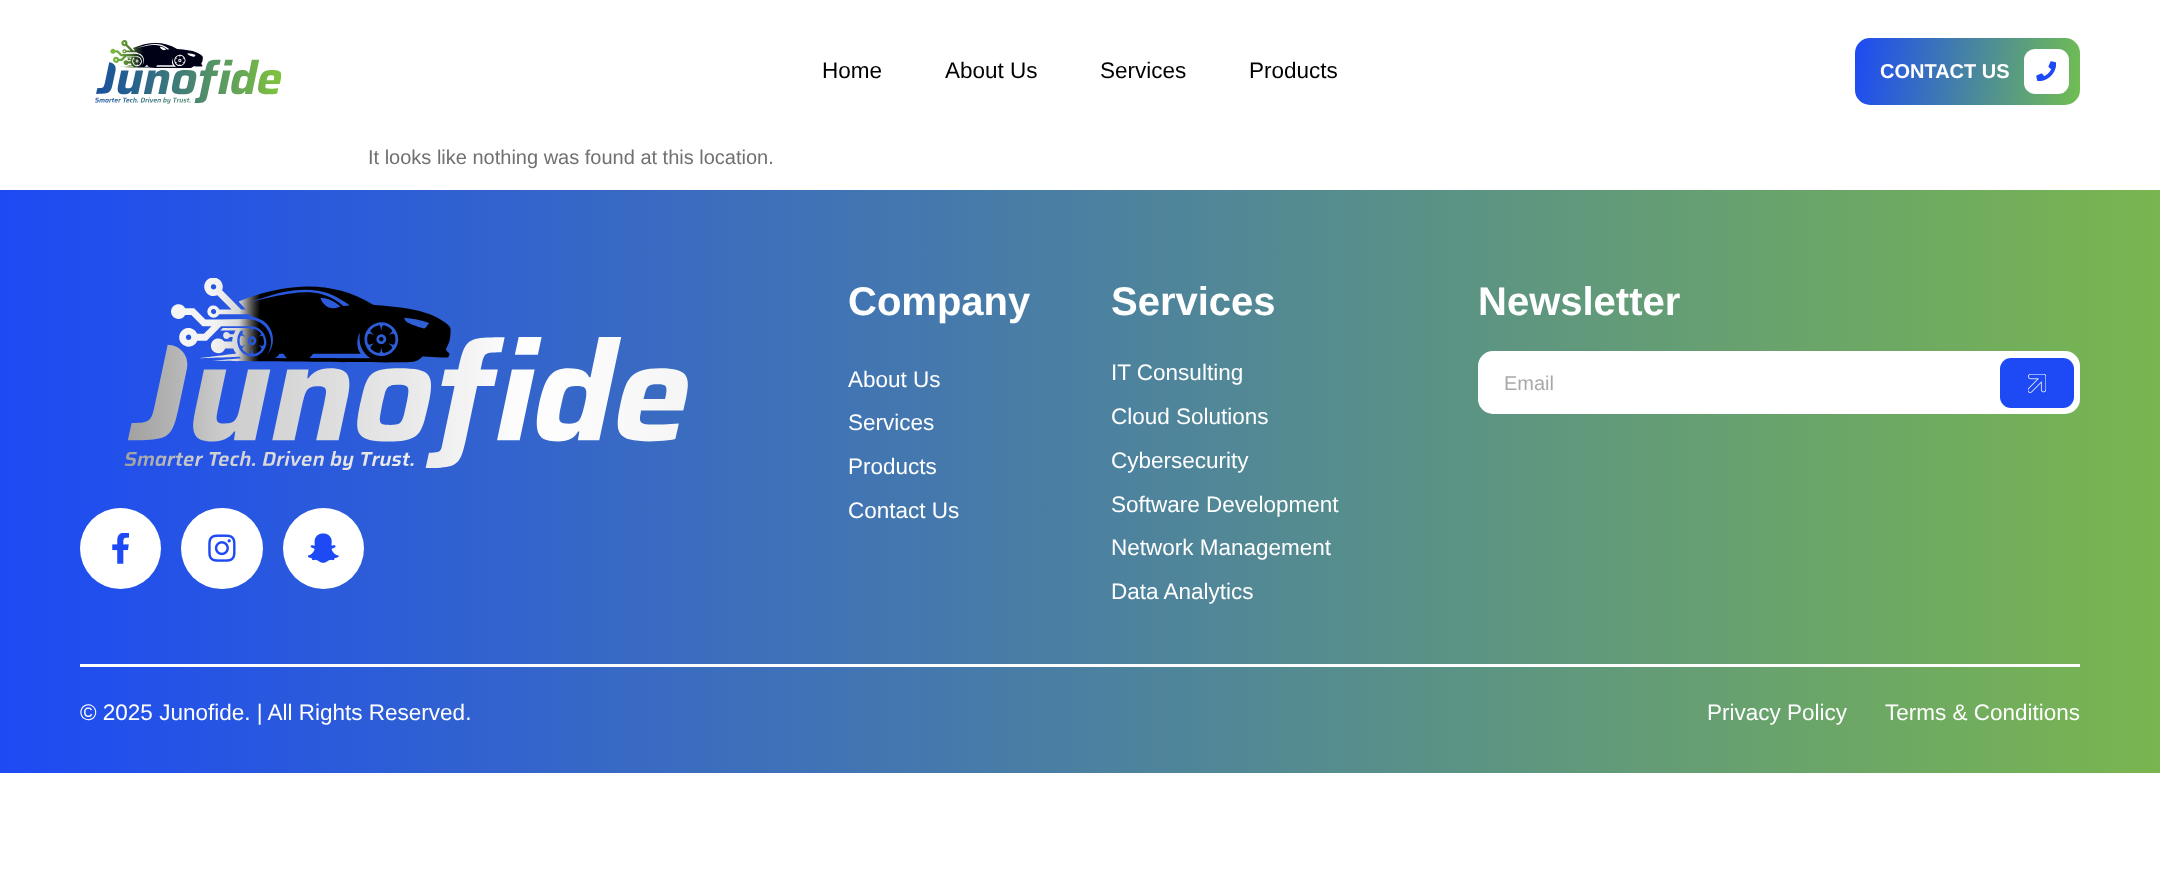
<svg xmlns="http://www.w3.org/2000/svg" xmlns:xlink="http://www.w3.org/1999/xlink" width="2160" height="892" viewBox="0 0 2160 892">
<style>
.cls-1{font:22.5px Liberation Sans;fill:#000000}
.cls-2{font:bold 20px Liberation Sans;fill:#ffffff}
.cls-3{font:20px Liberation Sans;fill:#707070}
.cls-4{font:bold 40px Liberation Sans;fill:#ffffff}
.cls-5{font:22.5px Liberation Sans;fill:#ffffff}
.cls-6{font:20px Liberation Sans;fill:#a9a9a9}
</style>
<defs>
<linearGradient id="g1" gradientUnits="userSpaceOnUse" x1="1853" y1="55" x2="2082" y2="87"><stop offset="0" stop-color="#1d4af4"/><stop offset="1" stop-color="#71be51"/></linearGradient>
<linearGradient id="g2" gradientUnits="userSpaceOnUse" x1="0" y1="481" x2="2160" y2="481"><stop offset="0" stop-color="#1d4af4"/><stop offset="1" stop-color="#79b64f"/></linearGradient>
</defs>
<rect width="100%" height="100%" fill="#ffffff"/>
<image xlink:href="image0.png" x="95" y="40" width="186" height="64"/>
<rect fill="url(#g1)" x="1855" y="38" width="225" height="67" rx="15"/>
<rect fill="#ffffff" x="2024" y="49" width="45" height="45" rx="11"/>
<image xlink:href="image1.png" x="2036" y="61" width="20" height="20"/>
<rect fill="url(#g2)" x="0" y="190" width="2160" height="583"/>
<image xlink:href="image2.png" x="124" y="278" width="564" height="192"/>
<circle fill="#ffffff" cx="120.5" cy="548.5" r="40.5"/>
<image xlink:href="image3.png" x="112" y="533" width="17" height="31"/>
<rect fill="#ffffff" x="181" y="508" width="82" height="81" rx="40.5"/>
<image xlink:href="image4.png" x="208" y="534" width="28" height="28"/>
<circle fill="#ffffff" cx="323.5" cy="548.5" r="40.5"/>
<image xlink:href="image5.png" x="308" y="533" width="31" height="30"/>
<rect fill="#ffffff" x="1478" y="351" width="602" height="63" rx="15"/>
<rect fill="#1d4af4" x="2000" y="358" width="74" height="50" rx="11"/>
<image xlink:href="image6.png" x="2028" y="374" width="18" height="19"/>
<rect fill="#ffffff" x="80" y="664" width="2000" height="3"/>
<text class="cls-1" x="822" y="78">Home</text>
<text class="cls-1" x="945" y="78">About Us</text>
<text class="cls-1" x="1100" y="78">Services</text>
<text class="cls-1" x="1249" y="78">Products</text>
<text class="cls-2" x="1880" y="78">CONTACT US</text>
<text class="cls-3" x="368" y="164">It looks like nothing was found at this location.</text>
<text class="cls-4" x="848" y="315">Company</text>
<text class="cls-5"><tspan x="848" y="387">About Us</tspan><tspan x="848" y="430">Services</tspan><tspan x="848" y="474">Products</tspan><tspan x="848" y="518">Contact Us</tspan></text>
<text class="cls-4" x="1111" y="315">Services</text>
<text class="cls-5"><tspan x="1111" y="380">IT Consulting</tspan><tspan x="1111" y="424">Cloud Solutions</tspan><tspan x="1111" y="468">Cybersecurity</tspan><tspan x="1111" y="512">Software Development</tspan><tspan x="1111" y="555">Network Management</tspan><tspan x="1111" y="599">Data Analytics</tspan></text>
<text class="cls-4" x="1478" y="315">Newsletter</text>
<text class="cls-6" x="1504" y="390">Email</text>
<text class="cls-5" x="80" y="720">© 2025 Junofide. | All Rights Reserved.</text>
<text class="cls-5" x="1707" y="720">Privacy Policy</text>
<text class="cls-5" x="1885" y="720">Terms &amp; Conditions</text>
</svg>
